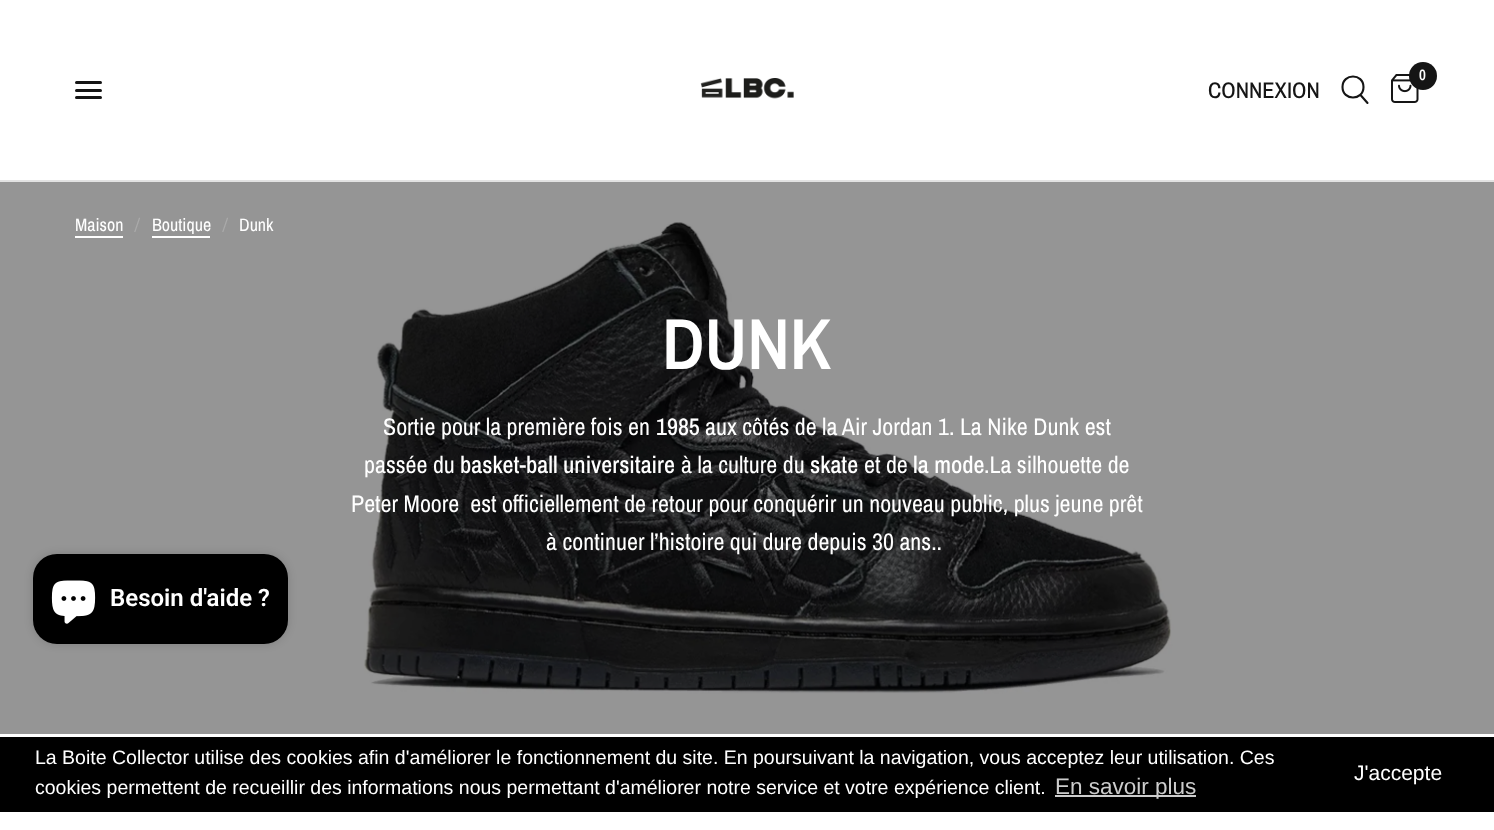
<svg xmlns="http://www.w3.org/2000/svg" xmlns:xlink="http://www.w3.org/1999/xlink" width="1494" height="830" viewBox="0 0 1494 830">
<style>
.cls-1{font:500 22.5px Archivo Narrow;fill:#151515}
.cls-2{font:600 15px Archivo Narrow;fill:#ffffff}
.cls-3{font:18px Archivo Narrow;fill:#ffffff}
.cls-4{font:italic 18px Archivo Narrow;fill:#aaaaaa}
.cls-5{font:600 72px Archivo Narrow;fill:#ffffff}
.cls-6{font:24px Archivo Narrow;fill:#ffffff}
.cls-7{font:500 24px Archivo Narrow;fill:#ffffff}
.cls-8{font:600 24px Roboto;fill:#ffffff}
.cls-9{font:19.5px Liberation Sans;fill:#ffffff}
.cls-10{font:22.5px Liberation Sans;fill:#cccccc}
.cls-11{font:21px Liberation Sans;fill:#ffffff}
</style>
<rect width="100%" height="100%" fill="#ffffff"/>
<rect fill="#999999" x="0" y="733" width="1494" height="1"/>
<rect fill="#e2e2e2" x="0" y="180" width="1494" height="2"/>
<rect fill="#151515" x="75" y="81" width="27" height="3" rx="1.5"/>
<rect fill="#151515" x="75" y="89" width="27" height="3" rx="1.5"/>
<rect fill="#151515" x="75" y="96" width="27" height="3" rx="1.5"/>
<image xlink:href="image0.png" x="700" y="78" width="94" height="21"/>
<path fill="none" stroke="#151515" stroke-width="2.1" stroke-linecap="round" stroke-linejoin="round" d="M1360.5 95L1367.5 103M1363.5 87C1363.5 101 1342.5 101 1342.5 87C1342.5 73 1363.5 73 1363.5 87Z"/>
<image xlink:href="image1.png" x="1391" y="74" width="28" height="29"/>
<circle fill="#151515" cx="1423" cy="76" r="14"/>
<image xlink:href="image2.png" x="0" y="182" width="1494" height="552"/>
<rect fill="#ffffff" x="75" y="236" width="48" height="2"/>
<rect fill="#ffffff" x="152" y="236" width="58" height="2"/>
<rect fill="#000000" fill-opacity="0.15" filter="blur(4px)" x="33" y="554" width="255" height="90" rx="24"/>
<rect fill="#000000" x="33" y="554" width="255" height="90" rx="24"/>
<image xlink:href="image3.png" x="51" y="580" width="45" height="44"/>
<rect fill="#000000" x="0" y="737" width="1494" height="75"/>
<rect fill="#cccccc" x="1055" y="795" width="141" height="2"/>
<text class="cls-1" x="1208" y="98">CONNEXION</text>
<text class="cls-2" x="1419" y="80">0</text>
<text class="cls-3" x="75" y="231">Maison</text>
<text class="cls-4" x="135" y="231">/</text>
<text class="cls-3" x="152" y="231">Boutique</text>
<text class="cls-4" x="223" y="231">/</text>
<text class="cls-3" x="239" y="231">Dunk</text>
<text class="cls-5" x="662" y="369">DUNK</text>
<text class="cls-6" x="383" y="435">Sortie pour la première fois en</text>
<text class="cls-7" x="656" y="435">1985</text>
<text class="cls-6" x="705" y="435">aux côtés de la Air Jordan 1. La Nike Dunk est</text>
<text class="cls-6" x="364" y="473">passée du</text>
<text class="cls-7" x="460" y="473">basket-ball universitaire</text>
<text class="cls-6" x="681" y="473">à la culture du</text>
<text class="cls-7" x="810" y="473">skate</text>
<text class="cls-6" x="864" y="473">et de</text>
<text class="cls-7" x="913" y="473">la mode</text>
<text class="cls-6" x="984" y="473">.La silhouette de</text>
<text class="cls-6" xml:space="preserve" x="351" y="512">Peter Moore  est officiellement de retour pour conquérir un nouveau public, plus jeune prêt</text>
<text class="cls-6" x="546" y="550">à continuer l’histoire qui dure depuis 30 ans..</text>
<text class="cls-8" x="110" y="606">Besoin d'aide ?</text>
<text class="cls-9"><tspan x="35" y="764">La Boite Collector utilise des cookies afin d'améliorer le fonctionnement du site. En poursuivant la navigation, vous acceptez leur utilisation. Ces</tspan><tspan x="35" y="794">cookies permettent de recueillir des informations nous permettant d'améliorer notre service et votre expérience client.</tspan></text>
<text class="cls-10" x="1055" y="794">En savoir plus</text>
<text class="cls-11" x="1354" y="780">J'accepte</text>
</svg>
